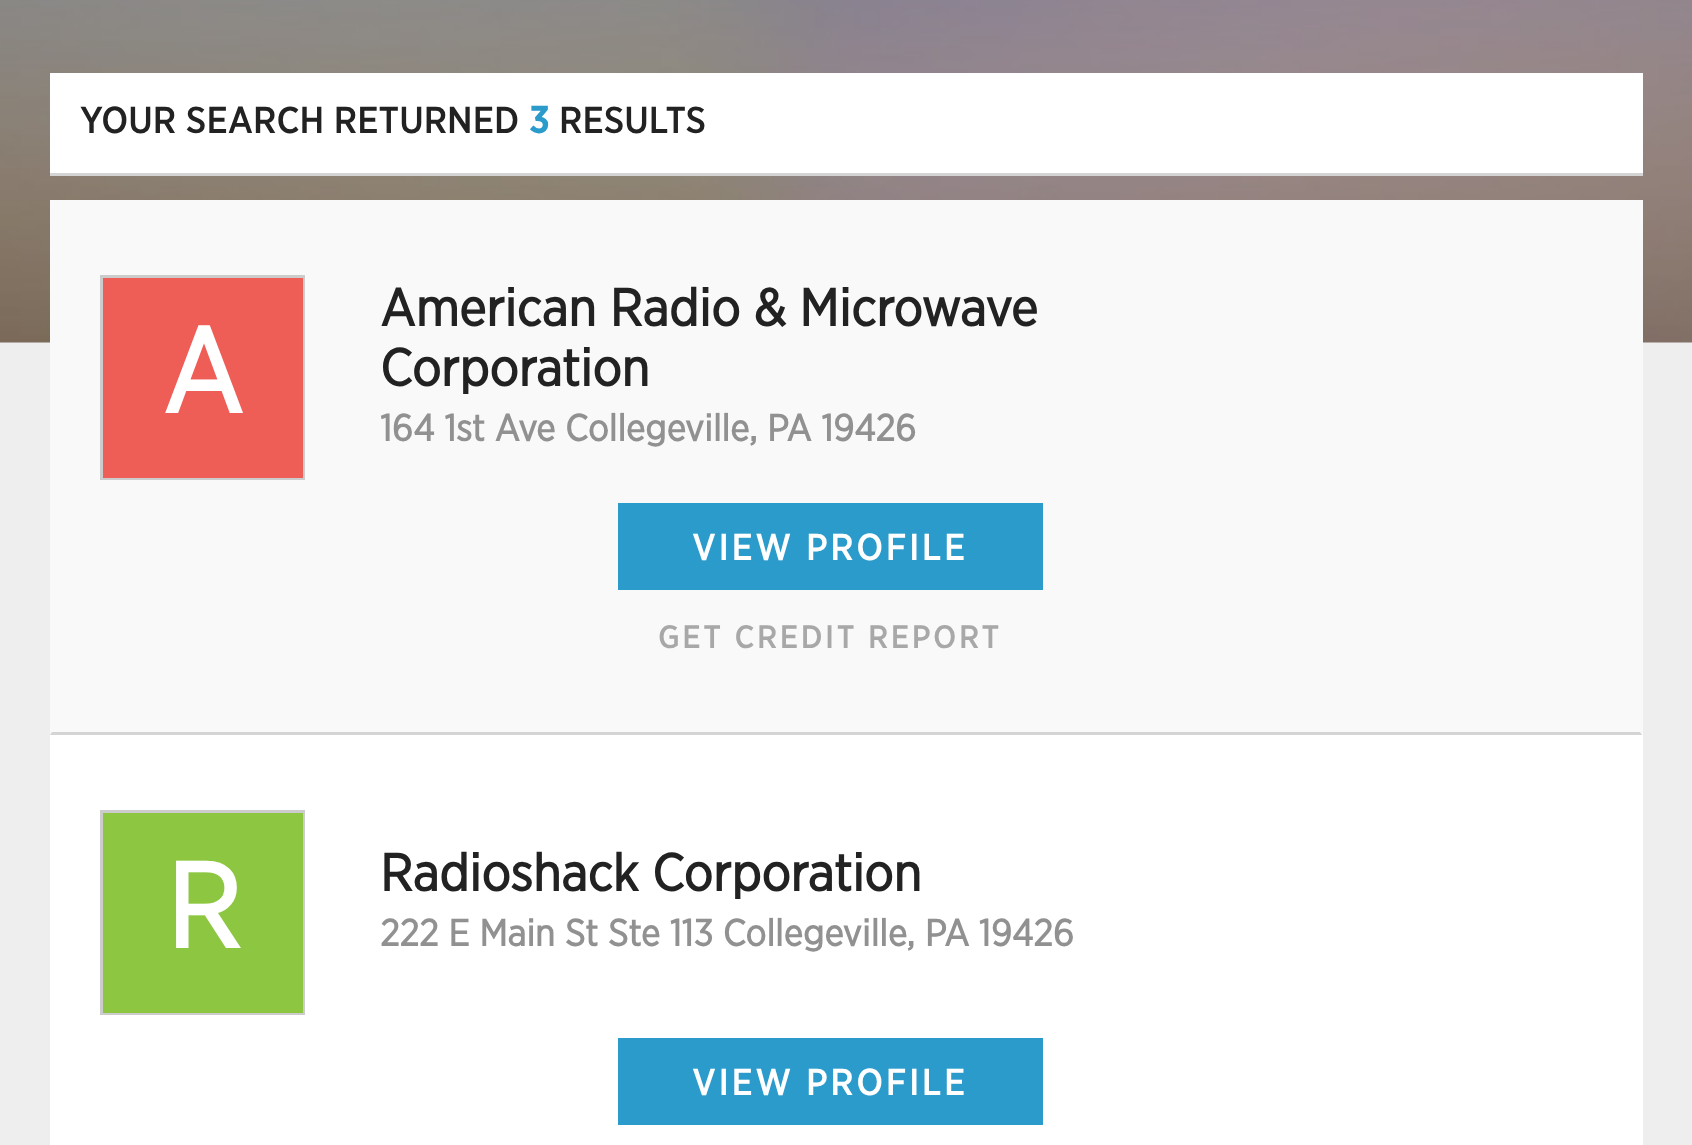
<svg xmlns="http://www.w3.org/2000/svg" xmlns:xlink="http://www.w3.org/1999/xlink" width="1692" height="1145" viewBox="0 0 1692 1145">
<style>
.cls-1{font:500 37.5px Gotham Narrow;fill:#222222}
.cls-2{font:bold 37.5px Gotham Narrow;fill:#2a9bcb}
.cls-3{font:bold 120px 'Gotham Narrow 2';fill:#ffffff}
.cls-4{font:bold 52.5px 'Gotham Narrow 2';fill:#222222}
.cls-5{font:bold 37.5px 'Gotham Narrow 2';fill:#919191}
.cls-6{font:500 37.5px Gotham Narrow;letter-spacing:2.5px;fill:#ffffff}
.cls-7{font:500 32.5px Gotham Narrow;letter-spacing:2.5px;fill:#a8a8a8}
</style>
<rect width="100%" height="100%" fill="#eeeeee"/>
<image xlink:href="image0.png" x="0" y="0" width="1692" height="343"/>
<rect fill="#ffffff" x="50" y="73" width="1593" height="100"/>
<rect fill="#d4d4d4" x="50" y="173" width="1593" height="3"/>
<rect fill="#ffffff" x="50" y="735" width="1593" height="410"/>
<rect fill="#f9f9f9" x="50" y="200" width="1593" height="535"/>
<path fill="#d4d4d4" d="M1642 735H50L52 732H1640Z"/>
<rect fill="none" stroke="#cccccc" stroke-width="3" x="101.5" y="276.5" width="202" height="202"/>
<rect fill="#ee5d56" x="103" y="278" width="200" height="200"/>
<rect fill="#2a9bcb" x="618" y="503" width="425" height="87"/>
<rect fill="none" stroke="#cccccc" stroke-width="3" x="101.5" y="811.5" width="202" height="202"/>
<rect fill="#8dc641" x="103" y="813" width="200" height="200"/>
<rect fill="#2a9bcb" x="618" y="1038" width="425" height="87"/>
<text class="cls-1" x="80" y="133">YOUR SEARCH RETURNED</text>
<text class="cls-2" x="529" y="133">3</text>
<text class="cls-1" x="559" y="133">RESULTS</text>
<text class="cls-3" x="162" y="413">A</text>
<text class="cls-4"><tspan x="380" y="326">American Radio &amp; Microwave</tspan><tspan x="380" y="386">Corporation</tspan></text>
<text class="cls-5" x="380" y="441">164 1st Ave Collegeville, PA 19426</text>
<text class="cls-6" x="692" y="560">VIEW PROFILE</text>
<text class="cls-7" x="658" y="648">GET CREDIT REPORT</text>
<text class="cls-3" x="166" y="948">R</text>
<text class="cls-4" x="380" y="891">Radioshack Corporation</text>
<text class="cls-5" x="380" y="946">222 E Main St Ste 113 Collegeville, PA 19426</text>
<text class="cls-6" x="692" y="1095">VIEW PROFILE</text>
</svg>
